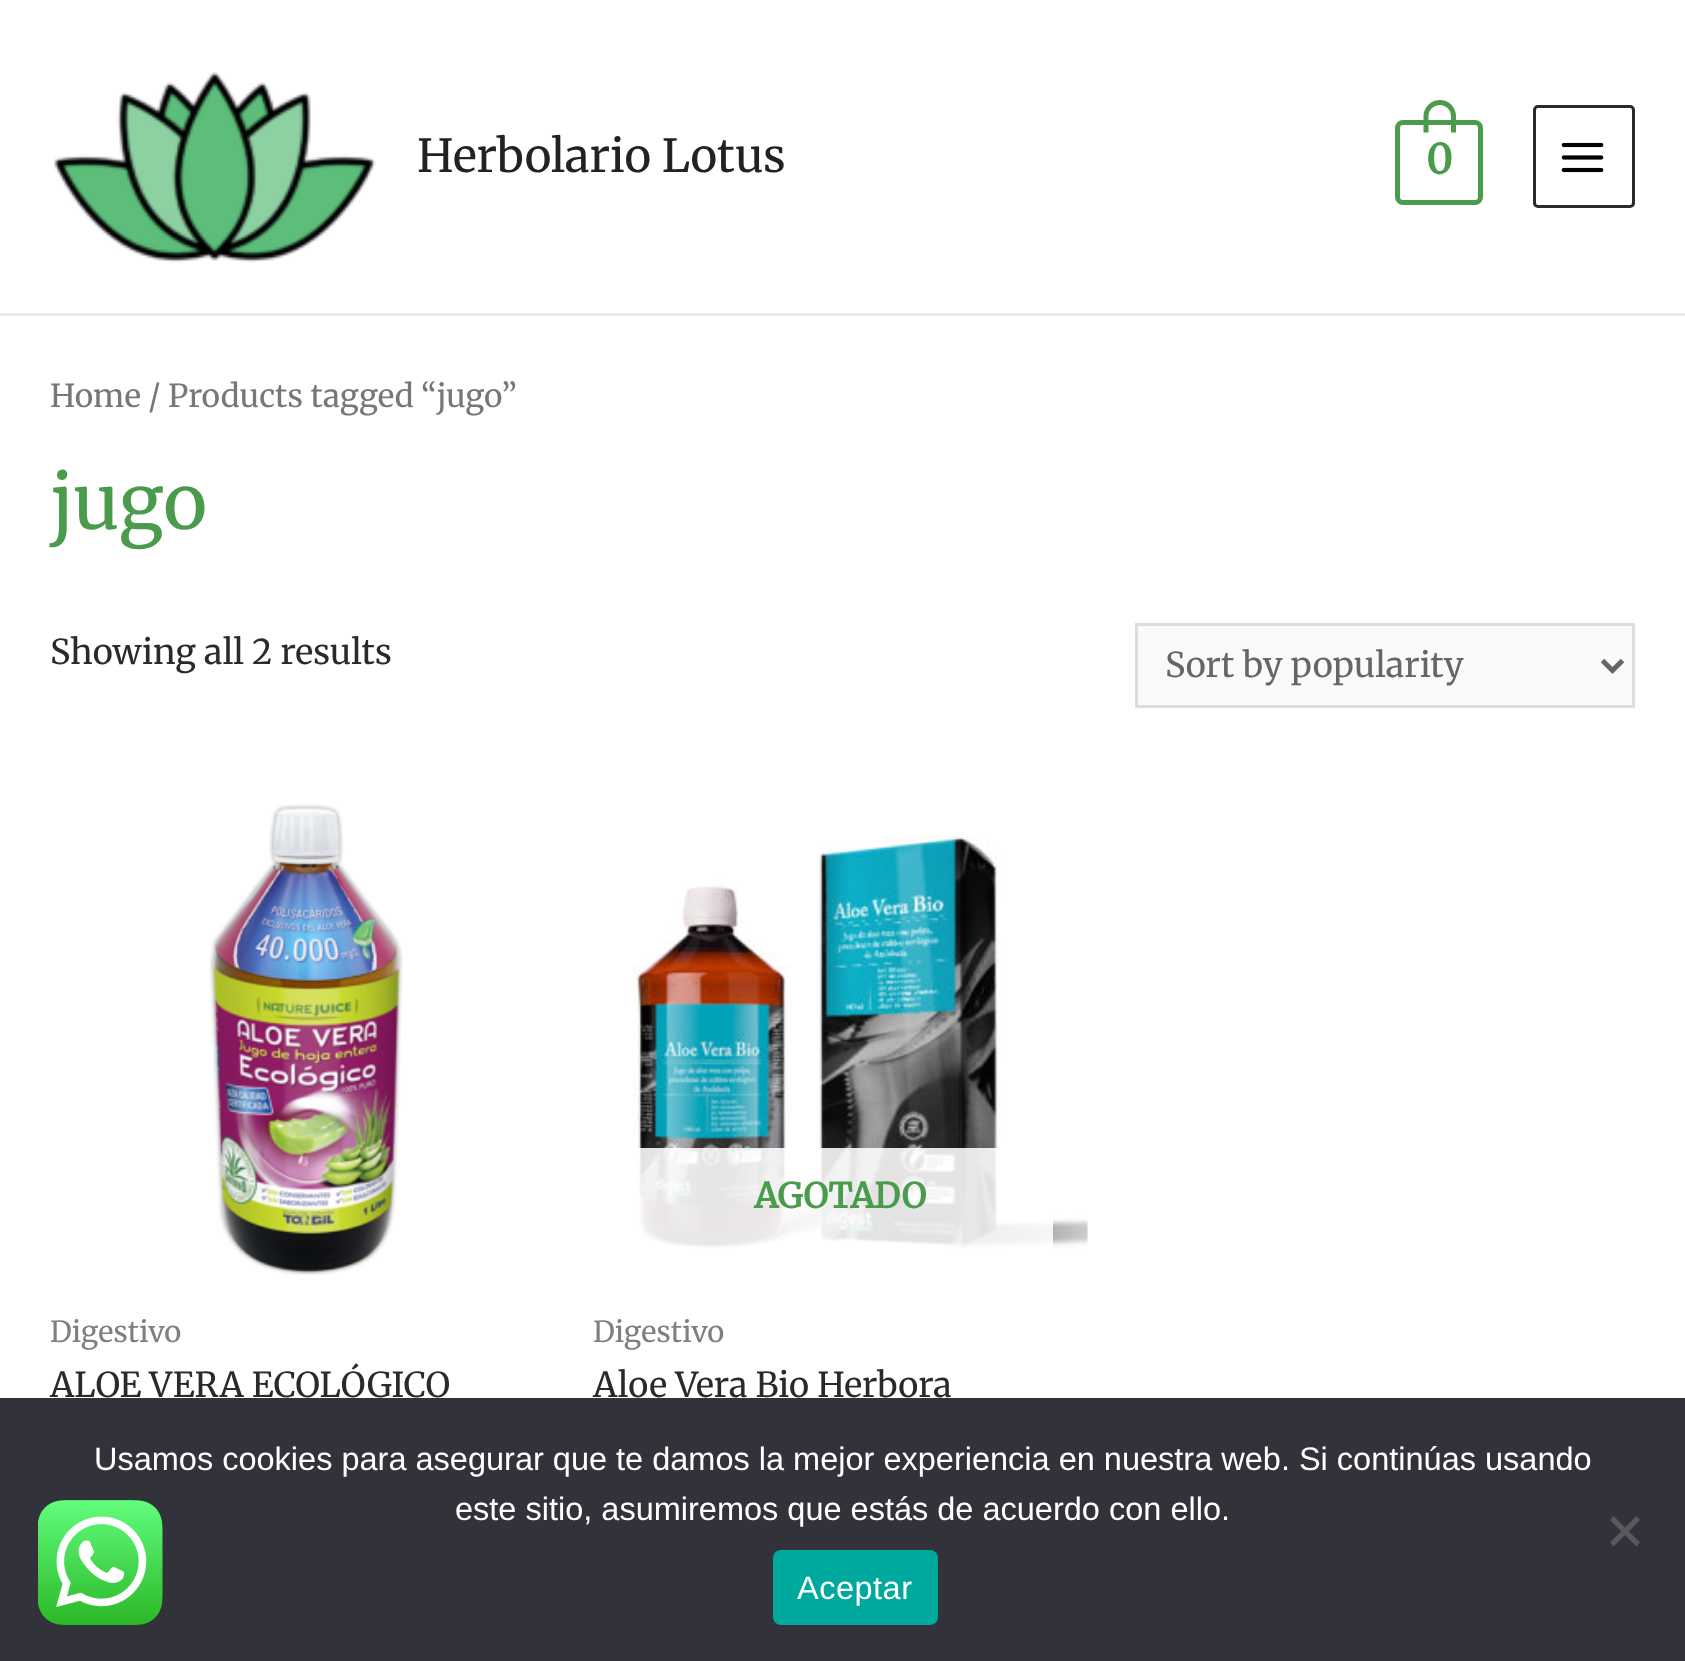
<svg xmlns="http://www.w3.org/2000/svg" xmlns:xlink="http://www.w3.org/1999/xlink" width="1685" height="1661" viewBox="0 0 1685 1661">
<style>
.cls-1{font:300 45.5px Merriweather;fill:#222222}
.cls-2{font:bold 41px Merriweather;fill:#4b9b4c}
.cls-3{font:300 31.5px Merriweather;fill:#777777}
.cls-4{font:300 75px Merriweather;fill:#4b9b4c}
.cls-5{font:300 34.25px Merriweather;fill:#2b2929}
.cls-6{font:300 34.25px Merriweather;fill:#666666}
.cls-7{font:300 29px Merriweather;fill:#807f7f}
.cls-8{font:bold 34.25px Merriweather;fill:#4b9b4c}
.cls-9{font:32.5px Liberation Sans;fill:#ffffff}
.cls-10{font:32.5px Liberation Sans;letter-spacing:0.5px;fill:#ffffff}
</style>
<rect width="100%" height="100%" fill="#ffffff"/>
<rect fill="#eaeaea" x="0" y="313" width="1685" height="3"/>
<image xlink:href="image0.png" x="54" y="72" width="322" height="191"/>
<rect fill="none" stroke="#4b9b4c" stroke-width="5" x="1397.5" y="122.5" width="83" height="80" rx="5.5"/>
<path fill="#4b9b4c" fill-rule="evenodd" d="M1440 100C1449 100 1456 107.5 1456 116V132.5H1423.5V116C1423.5 107.5 1431 100 1440 100ZM1440 105C1446 105 1451 110 1451 116V132.5H1428.5V116C1428.5 110 1433.5 105 1440 105Z"/>
<rect fill="none" stroke="#2b2929" stroke-width="3" x="1534.5" y="106.5" width="99" height="100" rx="3.5"/>
<image xlink:href="image1.png" x="1561" y="142" width="43" height="31"/>
<rect fill="#fafafa" stroke="#dddddd" stroke-width="3" x="1136.5" y="624.5" width="497" height="82"/>
<path fill="none" stroke="#666666" stroke-width="5" d="M1602.5 660.5L1612.5 670.5L1622.5 660.5"/>
<image xlink:href="image2.png" x="209" y="804" width="194" height="471"/>
<image xlink:href="image3.png" x="632" y="834" width="456" height="419"/>
<rect fill="#ffffff" fill-opacity="0.88" x="632" y="1148" width="421" height="105"/>
<rect fill="#32323a" x="0" y="1398" width="1685" height="263"/>
<path fill="#59595d" d="M1636.5 1516L1640 1520L1613.5 1546.5L1610 1542.5Z"/>
<path fill="#59595d" d="M1610 1520L1613.5 1516L1640 1542.5L1636.5 1546.5Z"/>
<rect fill="#00a99d" x="773" y="1550" width="165" height="75" rx="8"/>
<image xlink:href="image4.png" x="38" y="1500" width="125" height="125"/>
<text class="cls-1" x="417" y="172">Herbolario Lotus</text>
<text class="cls-2" x="1426" y="174">0</text>
<text class="cls-3" x="50" y="407">Home / Products tagged “jugo”</text>
<text class="cls-4" x="50" y="529">jugo</text>
<text class="cls-5" x="50" y="664">Showing all 2 results</text>
<text class="cls-6" x="1165" y="677">Sort by popularity</text>
<text class="cls-7" x="50" y="1342">Digestivo</text>
<text class="cls-5" x="50" y="1397">ALOE VERA ECOLÓGICO</text>
<text class="cls-8" x="754" y="1208">AGOTADO</text>
<text class="cls-7" x="593" y="1342">Digestivo</text>
<text class="cls-5" x="593" y="1397">Aloe Vera Bio Herbora</text>
<text class="cls-9" x="94" y="1470">Usamos cookies para asegurar que te damos la mejor experiencia en nuestra web. Si continúas usando</text>
<text class="cls-9" x="455" y="1520">este sitio, asumiremos que estás de acuerdo con ello.</text>
<text class="cls-10" x="797" y="1599">Aceptar</text>
</svg>
